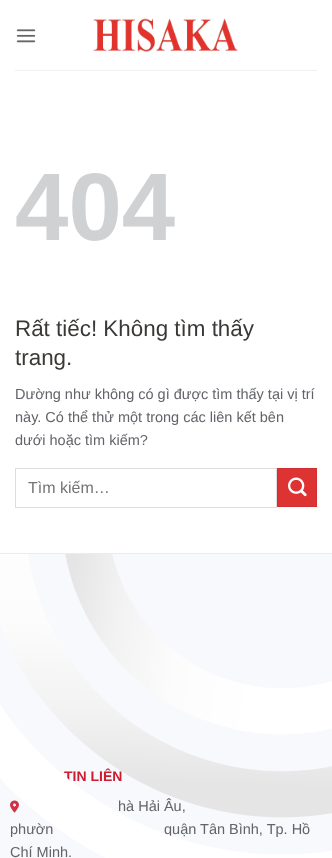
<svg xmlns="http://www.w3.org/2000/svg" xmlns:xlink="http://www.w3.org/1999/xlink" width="332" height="858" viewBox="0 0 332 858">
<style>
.cls-1{font:bold 96px Liberation Sans;fill:#d0d1d2}
.cls-2{font:22.4px Liberation Sans;fill:#3b3937}
.cls-3{font:14.5px Liberation Sans;fill:#626469}
.cls-4{font:16px Liberation Sans;fill:#757575}
.cls-5{font:bold 14px Liberation Sans;fill:#cd1b2f}
</style>
<rect width="100%" height="100%" fill="#ffffff"/>
<image xlink:href="image0.png" x="16" y="29" width="20" height="14"/>
<image xlink:href="image1.png" x="93" y="18" width="145" height="34"/>
<rect fill="#eff0f0" x="15" y="70" width="302" height="1"/>
<rect fill="none" stroke="#dddddd" x="15.5" y="468.5" width="261" height="39"/>
<rect fill="#dd3333" stroke="#d23030" x="277.5" y="468.5" width="39" height="38"/>
<image xlink:href="image2.png" x="288" y="477" width="19" height="20"/>
<rect fill="#ebebeb" x="0" y="553" width="332" height="1"/>
<rect fill="#f8f9fc" x="0" y="554" width="332" height="304"/>
<image xlink:href="image4.png" x="10" y="800" width="9" height="13"/>
<text class="cls-1" x="15" y="240">404</text>
<text class="cls-2"><tspan x="15" y="336">Rất tiếc! Không tìm thấy</tspan><tspan x="15" y="365">trang.</tspan></text>
<text class="cls-3"><tspan x="15" y="399">Dường như không có gì được tìm thấy tại vị trí</tspan><tspan x="15" y="422">này. Có thể thử một trong các liên kết bên</tspan><tspan x="15" y="445">dưới hoặc tìm kiếm?</tspan></text>
<text class="cls-4" x="28" y="493">Tìm kiếm…</text>
<text class="cls-5" x="64" y="781">TIN LIÊN</text>
<text class="cls-3" x="118" y="811">hà Hải Âu,</text>
<text class="cls-3" x="10" y="834">phườn</text>
<text class="cls-3" x="164" y="834">quận Tân Bình, Tp. Hồ</text>
<text class="cls-3" x="10" y="857">Chí Minh.</text>
<image xlink:href="image3.png" x="0" y="554" width="332" height="304"/>
</svg>
